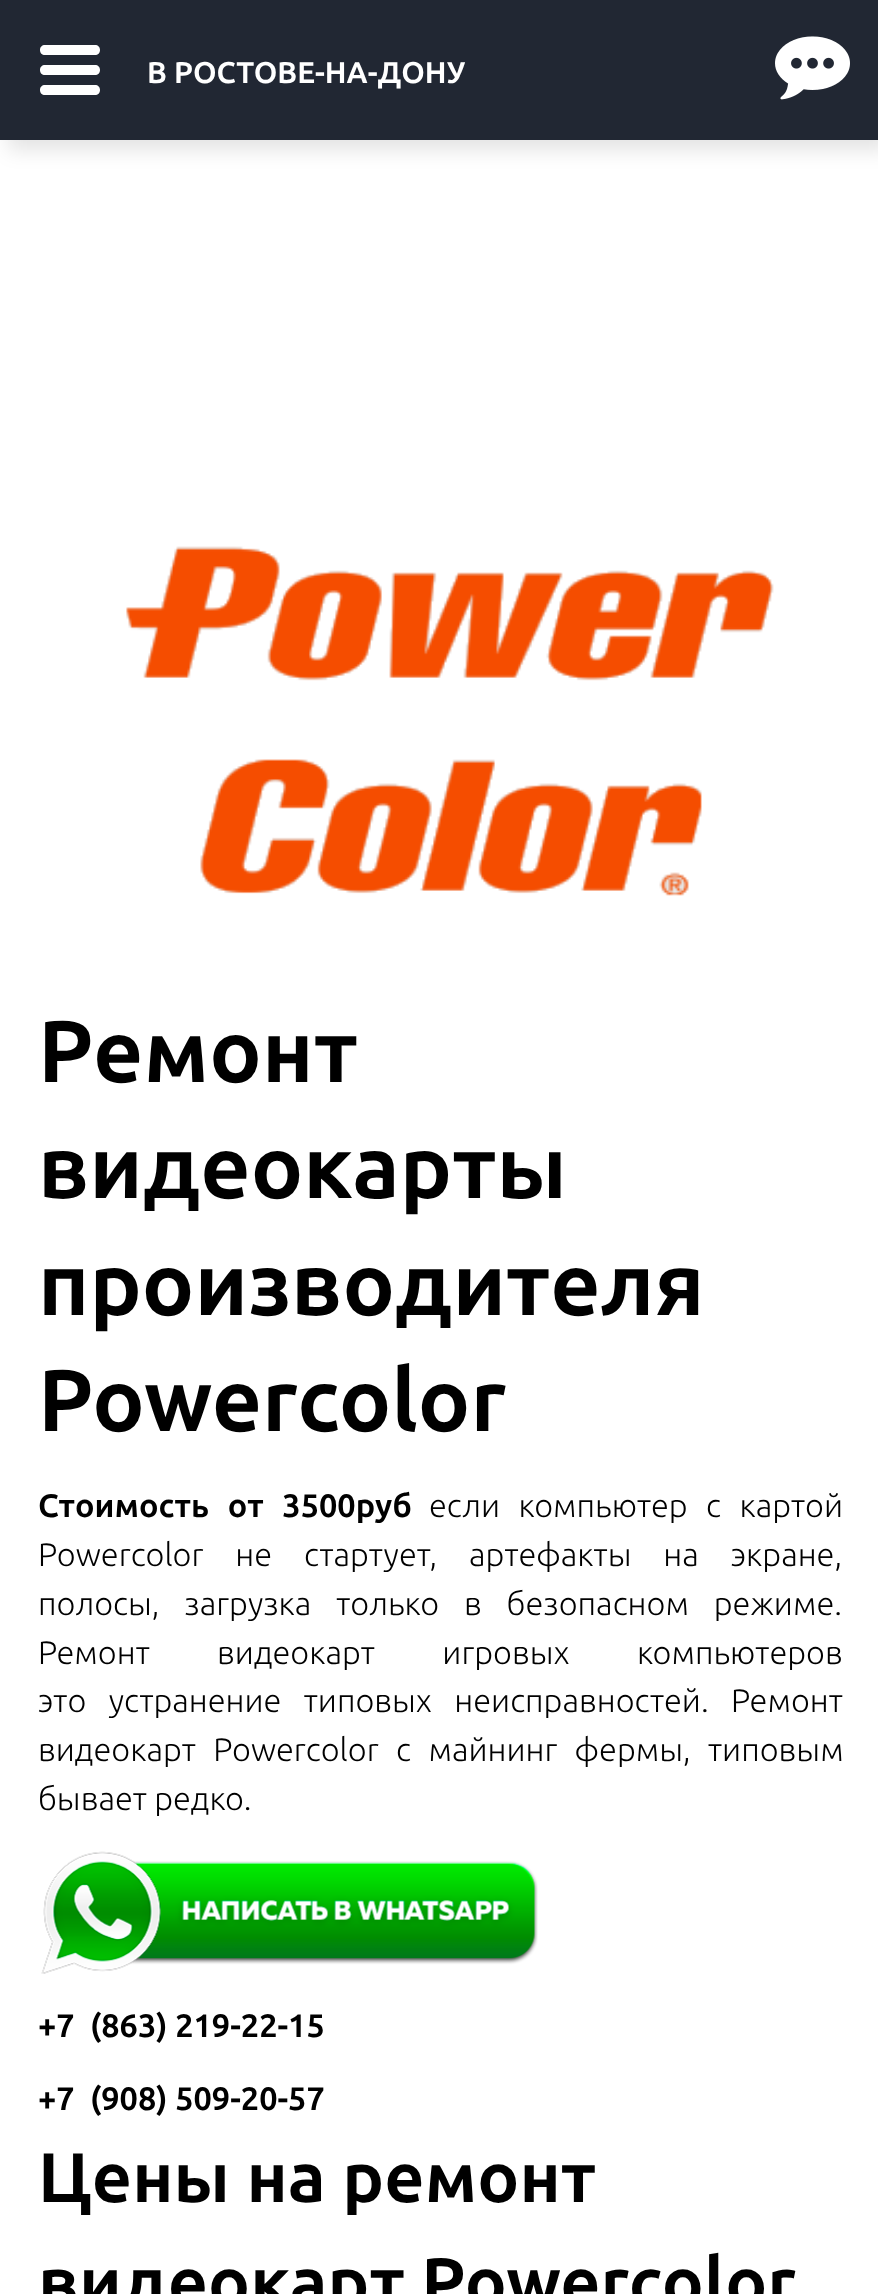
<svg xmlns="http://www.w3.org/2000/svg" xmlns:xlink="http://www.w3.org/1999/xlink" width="878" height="2294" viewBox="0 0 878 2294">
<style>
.cls-1{font:bold 30px Ubuntu;fill:#ffffff}
.cls-2{font:bold 87.5px Ubuntu;fill:#000000}
.cls-3{font:bold 32.5px Ubuntu;fill:#000000}
.cls-4{font:300 32.5px Ubuntu;fill:#000000}
.cls-5{font:bold 70px Ubuntu;fill:#000000}
</style>
<rect width="100%" height="100%" fill="#ffffff"/>
<rect fill="#000000" fill-opacity="0.11" filter="blur(10px)" x="8" y="10" width="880" height="140"/>
<rect fill="#212733" x="0" y="0" width="878" height="140"/>
<path fill="#ffffff" d="M95 75H45C42 75 40 73 40 70C40 67 42 65 45 65H95C98 65 100 67 100 70C100 73 98 75 95 75ZM95 95H45C42 95 40 93 40 90C40 87 42 85 45 85H95C98 85 100 87 100 90C100 93 98 95 95 95ZM95 55H45C42 55 40 53 40 50C40 47 42 45 45 45H95C98 45 100 47 100 50C100 53 98 55 95 55Z"/>
<image xlink:href="image0.png" x="775" y="36" width="75" height="64"/>
<image xlink:href="image1.png" x="126" y="546" width="648" height="350"/>
<image xlink:href="image2.png" x="41" y="1851" width="497" height="123"/>
<text class="cls-1" x="147" y="83">В РОСТОВЕ-НА-ДОНУ</text>
<text class="cls-2"><tspan x="38" y="1082">Ремонт</tspan><tspan x="38" y="1198">видеокарты</tspan><tspan x="38" y="1315">производителя</tspan><tspan x="38" y="1431">Powercolor</tspan></text>
<text class="cls-3" x="38" y="1517" word-spacing="11">Стоимость от 3500руб</text>
<text class="cls-4" x="429" y="1517" word-spacing="11">если компьютер с картой</text>
<text class="cls-4"><tspan x="38" y="1566" word-spacing="24.5">Powercolor не стартует, артефакты на экране,</tspan><tspan x="38" y="1615" word-spacing="17.5">полосы, загрузка только в безопасном режиме.</tspan><tspan x="38" y="1664" word-spacing="60">Ремонт видеокарт игровых компьютеров</tspan><tspan x="38" y="1712" word-spacing="15">это устранение типовых неисправностей. Ремонт</tspan><tspan x="38" y="1761" word-spacing="10">видеокарт Powercolor с майнинг фермы, типовым</tspan><tspan x="38" y="1810">бывает редко.</tspan></text>
<text class="cls-3" x="38" y="2037">+7</text>
<text class="cls-3" x="90" y="2037">(863) 219-22-15</text>
<text class="cls-3" x="38" y="2110">+7</text>
<text class="cls-3" x="90" y="2110">(908) 509-20-57</text>
<text class="cls-5"><tspan x="38" y="2202">Цены на ремонт</tspan><tspan x="38" y="2307">видеокарт Powercolor</tspan></text>
</svg>
